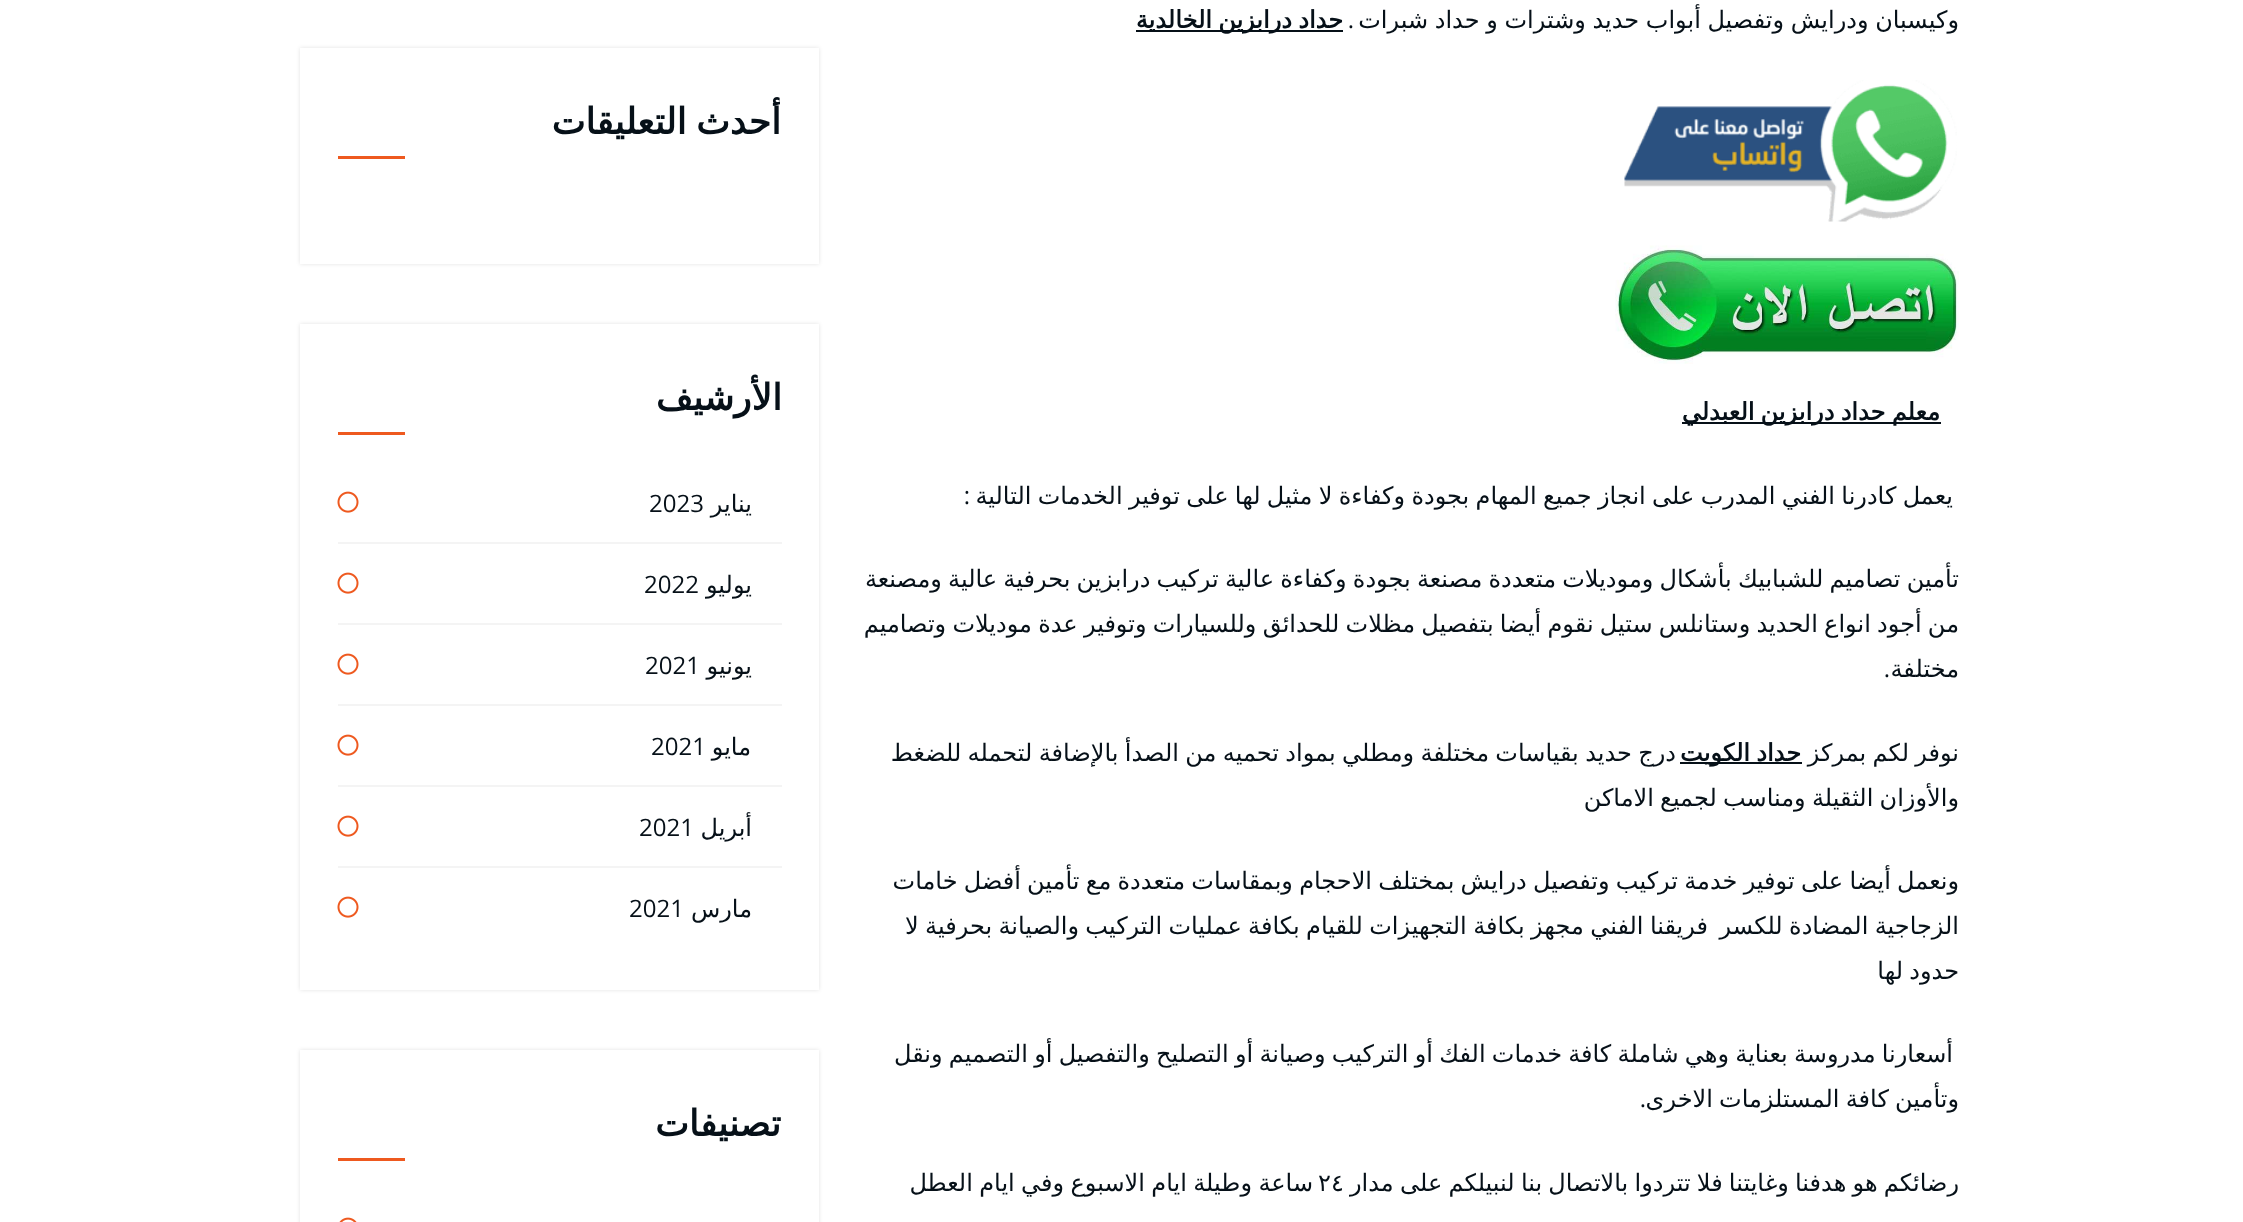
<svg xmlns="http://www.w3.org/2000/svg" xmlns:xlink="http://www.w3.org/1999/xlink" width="2243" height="1222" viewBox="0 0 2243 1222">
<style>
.cls-1{font:24px DejaVu Sans;direction:rtl;fill:#061018}
.cls-2{font:24px Open Sans;direction:rtl;fill:#061018}
.cls-3{font:bold 24px DejaVu Sans;direction:rtl;fill:#061018}
.cls-4{font:24px DejaVu Sans;fill:#061018}
.cls-5{font:bold 36px DejaVu Sans;direction:rtl;fill:#061018}
.cls-6{font:24px Open Sans;fill:#061018}
</style>
<defs>
<clipPath id="clip1"><path d="M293 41H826V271H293ZM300 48H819V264H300Z" clip-rule="evenodd"/></clipPath>
<clipPath id="clip2"><path d="M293 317H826V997H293ZM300 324H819V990H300Z" clip-rule="evenodd"/></clipPath>
<clipPath id="clip3"><path d="M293 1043H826V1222H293ZM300 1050H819V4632H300Z" clip-rule="evenodd"/></clipPath>
<clipPath id="clip4"><rect x="855" y="0" width="1104" height="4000"/></clipPath>
</defs>
<rect width="100%" height="100%" fill="#ffffff"/>
<rect fill="#061018" x="1136" y="30" width="207" height="2"/>
<image xlink:href="image0.png" x="1624" y="80" width="333" height="142"/>
<image xlink:href="image1.png" x="1615" y="245" width="344" height="119"/>
<rect fill="#061018" x="1682" y="422" width="259" height="2"/>
<rect fill="#061018" x="1680" y="762" width="122" height="2"/>
<g clip-path="url(#clip1)">
<rect fill="#000000" fill-opacity="0.11" filter="blur(2px)" x="300" y="48" width="519" height="216"/>
</g>
<rect fill="#ee591f" x="338" y="156" width="67" height="3"/>
<g clip-path="url(#clip2)">
<rect fill="#000000" fill-opacity="0.11" filter="blur(2px)" x="300" y="324" width="519" height="666"/>
</g>
<rect fill="#ee591f" x="338" y="432" width="67" height="3"/>
<rect fill="#f4f4f4" x="338" y="542" width="444" height="2"/>
<image xlink:href="image2.png" x="337" y="491" width="22" height="22"/>
<rect fill="#f4f4f4" x="338" y="623" width="444" height="2"/>
<image xlink:href="image2.png" x="337" y="572" width="22" height="22"/>
<rect fill="#f4f4f4" x="338" y="704" width="444" height="2"/>
<image xlink:href="image2.png" x="337" y="653" width="22" height="22"/>
<rect fill="#f4f4f4" x="338" y="785" width="444" height="2"/>
<image xlink:href="image2.png" x="337" y="734" width="22" height="22"/>
<rect fill="#f4f4f4" x="338" y="866" width="444" height="2"/>
<image xlink:href="image2.png" x="337" y="815" width="22" height="22"/>
<image xlink:href="image2.png" x="337" y="896" width="22" height="22"/>
<g clip-path="url(#clip3)">
<rect fill="#000000" fill-opacity="0.11" filter="blur(2px)" x="300" y="1050" width="519" height="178"/>
</g>
<rect fill="#ee591f" x="338" y="1158" width="67" height="3"/>
<image xlink:href="image3.png" x="339" y="1217" width="18" height="5"/>
<g clip-path="url(#clip4)">
<text class="cls-1" x="1959" y="28" word-spacing="-1">وكيسبان ودرايش وتفصيل أبواب حديد وشترات و حداد شبرات</text>
</g>
<text class="cls-2" x="1354" y="28">.</text>
<text class="cls-3" x="1343" y="28" word-spacing="-1.4">حداد درابزين الخالدية</text>
<text class="cls-3" x="1940" y="420" word-spacing="-1.4">معلم حداد درابزين العبدلي</text>
<g clip-path="url(#clip4)">
<text class="cls-1" x="1953" y="504" word-spacing="-1.3">يعمل كادرنا الفني المدرب على انجاز جميع المهام بجودة وكفاءة لا مثيل لها على توفير الخدمات التالية</text>
</g>
<text class="cls-2" x="970" y="504">:</text>
<g clip-path="url(#clip4)">
<text class="cls-1"><tspan x="1959" y="587" word-spacing="-1.4">تأمين تصاميم للشبابيك بأشكال وموديلات متعددة مصنعة بجودة وكفاءة عالية تركيب درابزين بحرفية عالية ومصنعة</tspan><tspan x="1959" y="632" word-spacing="-1.4">من أجود انواع الحديد وستانلس ستيل نقوم أيضا بتفصيل مظلات للحدائق وللسيارات وتوفير عدة موديلات وتصاميم</tspan></text>
</g>
<text class="cls-1" x="1959" y="677">مختلفة</text>
<text class="cls-2" x="1890" y="677">.</text>
<g clip-path="url(#clip4)">
<text class="cls-1" x="1959" y="761" word-spacing="-1.4">نوفر لكم بمركز</text>
</g>
<text class="cls-3" x="1801" y="761" word-spacing="-1.4">حداد الكويت</text>
<text class="cls-1" x="1676" y="761" word-spacing="-1.25">درج حديد بقياسات مختلفة ومطلي بمواد تحميه من الصدأ بالإضافة لتحمله للضغط</text>
<g clip-path="url(#clip4)">
<text class="cls-1" x="1959" y="806" word-spacing="-1.4">والأوزان الثقيلة ومناسب لجميع الاماكن</text>
<text class="cls-1" x="1959" y="889" word-spacing="-1.4">ونعمل أيضا على توفير خدمة تركيب وتفصيل درايش بمختلف الاحجام وبمقاسات متعددة مع تأمين أفضل خامات</text>
</g>
<text class="cls-1" x="1708" y="934" word-spacing="-1.25">فريقنا الفني مجهز بكافة التجهيزات للقيام بكافة عمليات التركيب والصيانة بحرفية لا</text>
<g clip-path="url(#clip4)">
<text class="cls-1" x="1959" y="934" word-spacing="-1.25">الزجاجية المضادة للكسر</text>
</g>
<text class="cls-1" x="1959" y="979" word-spacing="-1.4">حدود لها</text>
<g clip-path="url(#clip4)">
<text class="cls-1" x="1953" y="1062" word-spacing="-1.4">أسعارنا مدروسة بعناية وهي شاملة كافة خدمات الفك أو التركيب وصيانة أو التصليح والتفصيل أو التصميم ونقل</text>
<text class="cls-1" x="1959" y="1107" word-spacing="-1.4">وتأمين كافة المستلزمات الاخرى</text>
</g>
<text class="cls-2" x="1646" y="1107">.</text>
<g clip-path="url(#clip4)">
<text class="cls-1" x="1959" y="1191" word-spacing="-1.4">رضائكم هو هدفنا وغايتنا فلا تتردوا بالاتصال بنا لنبيلكم على مدار</text>
</g>
<text class="cls-1" x="1313" y="1191" word-spacing="-1.25">ساعة وطيلة ايام الاسبوع وفي ايام العطل</text>
<text class="cls-4" x="1318" y="1191">٢٤</text>
<text class="cls-5" x="781" y="134" word-spacing="-2">أحدث التعليقات</text>
<text class="cls-5" x="782" y="410">الأرشيف</text>
<text class="cls-1" x="752" y="512">يناير</text>
<text class="cls-6" x="649" y="512">2023</text>
<text class="cls-1" x="752" y="593">يوليو</text>
<text class="cls-6" x="644" y="593">2022</text>
<text class="cls-1" x="752" y="674">يونيو</text>
<text class="cls-6" x="645" y="674">2021</text>
<text class="cls-1" x="751" y="755">مايو</text>
<text class="cls-6" x="651" y="755">2021</text>
<text class="cls-1" x="752" y="836">أبريل</text>
<text class="cls-6" x="639" y="836">2021</text>
<text class="cls-1" x="752" y="917">مارس</text>
<text class="cls-6" x="629" y="917">2021</text>
<text class="cls-5" x="781" y="1136">تصنيفات</text>
</svg>
